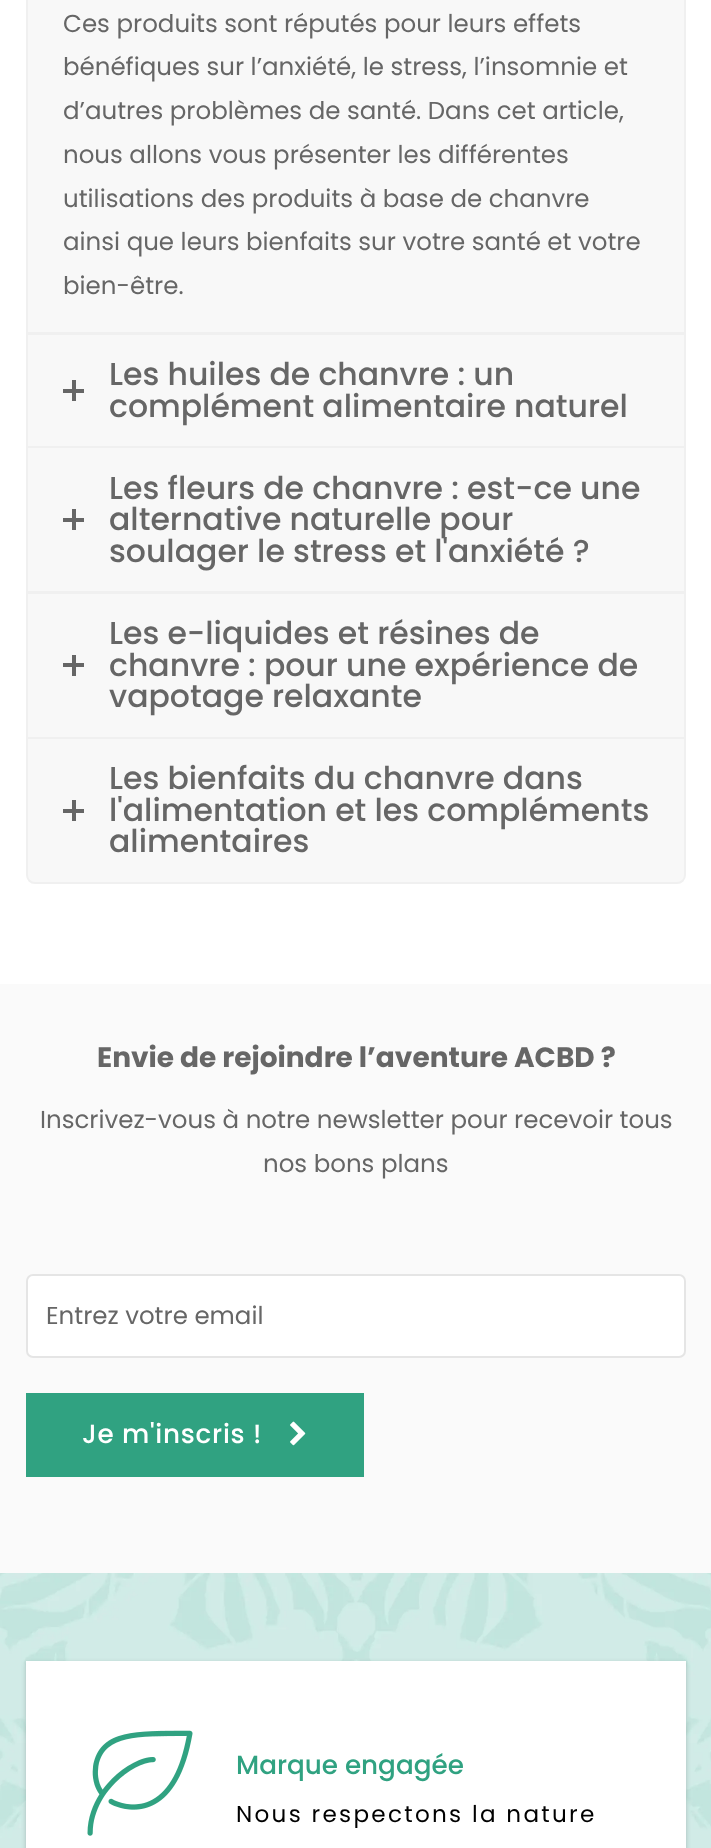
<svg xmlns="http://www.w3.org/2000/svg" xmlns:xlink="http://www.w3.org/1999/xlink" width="711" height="1848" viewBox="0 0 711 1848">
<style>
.cls-1{font:24.5px Poppins;fill:#666666}
.cls-2{font:500 31.5px Poppins;fill:#666666}
.cls-3{font:bold 28px Poppins;fill:#666666}
.cls-4{font:500 26.25px Poppins;letter-spacing:0.75px;fill:#ffffff}
.cls-5{font:500 26.25px Poppins;fill:#30a281}
.cls-6{font:23.1px Poppins;letter-spacing:2.3px;fill:#000000}
</style>
<rect width="100%" height="100%" fill="#ffffff"/>
<rect fill="#f8f8f8" stroke="#f0f0f0" stroke-width="2" x="27" y="334" width="658" height="113"/>
<rect fill="#f8f8f8" stroke="#f0f0f0" stroke-width="2" x="27" y="-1" width="658" height="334"/>
<rect fill="#666666" x="63" y="389" width="21" height="4"/>
<rect fill="#666666" x="72" y="380" width="4" height="21"/>
<rect fill="#f8f8f8" stroke="#f0f0f0" stroke-width="2" x="27" y="447" width="658" height="145"/>
<rect fill="#666666" x="63" y="518" width="21" height="4"/>
<rect fill="#666666" x="72" y="509" width="4" height="21"/>
<rect fill="#f8f8f8" stroke="#f0f0f0" stroke-width="2" x="27" y="593" width="658" height="145"/>
<rect fill="#666666" x="63" y="663" width="21" height="4"/>
<rect fill="#666666" x="72" y="655" width="4" height="21"/>
<path fill="#f8f8f8" stroke="#f0f0f0" stroke-width="2" d="M27 738H685V875C685 879.5 681.5 883 677 883H35C30.5 883 27 879.5 27 875Z"/>
<rect fill="#666666" x="63" y="809" width="21" height="4"/>
<rect fill="#666666" x="72" y="800" width="4" height="21"/>
<rect fill="#fafafa" x="0" y="984" width="711" height="589"/>
<rect fill="#ffffff" stroke="#e5e5e5" stroke-width="2" x="27" y="1275" width="658" height="82" rx="6"/>
<rect fill="#30a281" x="26" y="1393" width="338" height="84"/>
<image xlink:href="image0.png" x="290" y="1421" width="16" height="25"/>
<image xlink:href="image1.png" x="0" y="1573" width="711" height="275"/>
<rect fill="#000000" fill-opacity="0.2" filter="blur(2.5px)" x="26" y="1663" width="660" height="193"/>
<rect fill="#ffffff" x="26" y="1661" width="660" height="187"/>
<image xlink:href="image2.png" x="87" y="1730" width="106" height="106"/>
<text class="cls-1"><tspan x="63" y="32">Ces produits sont réputés pour leurs effets</tspan><tspan x="63" y="75">bénéfiques sur l’anxiété, le stress, l’insomnie et</tspan><tspan x="63" y="119">d’autres problèmes de santé. Dans cet article,</tspan><tspan x="63" y="163">nous allons vous présenter les différentes</tspan><tspan x="63" y="207">utilisations des produits à base de chanvre</tspan><tspan x="63" y="250">ainsi que leurs bienfaits sur votre santé et votre</tspan><tspan x="63" y="294">bien-être.</tspan></text>
<text class="cls-2"><tspan x="109" y="385">Les huiles de chanvre : un</tspan><tspan x="109" y="417">complément alimentaire naturel</tspan></text>
<text class="cls-2"><tspan x="109" y="499">Les fleurs de chanvre : est-ce une</tspan><tspan x="109" y="530">alternative naturelle pour</tspan><tspan x="109" y="562">soulager le stress et l'anxiété ?</tspan></text>
<text class="cls-2"><tspan x="109" y="644">Les e-liquides et résines de</tspan><tspan x="109" y="676">chanvre : pour une expérience de</tspan><tspan x="109" y="707">vapotage relaxante</tspan></text>
<text class="cls-2"><tspan x="109" y="789">Les bienfaits du chanvre dans</tspan><tspan x="109" y="821">l'alimentation et les compléments</tspan><tspan x="109" y="852">alimentaires</tspan></text>
<text class="cls-3" x="97" y="1067">Envie de rejoindre l’aventure ACBD ?</text>
<text class="cls-1" x="40" y="1128">Inscrivez-vous à notre newsletter pour recevoir tous</text>
<text class="cls-1" x="263" y="1172">nos bons plans</text>
<text class="cls-1" x="46" y="1324">Entrez votre email</text>
<text class="cls-4" x="82" y="1443">Je m'inscris !</text>
<text class="cls-5" x="236" y="1774">Marque engagée</text>
<text class="cls-6" x="236" y="1822">Nous respectons la nature</text>
</svg>
